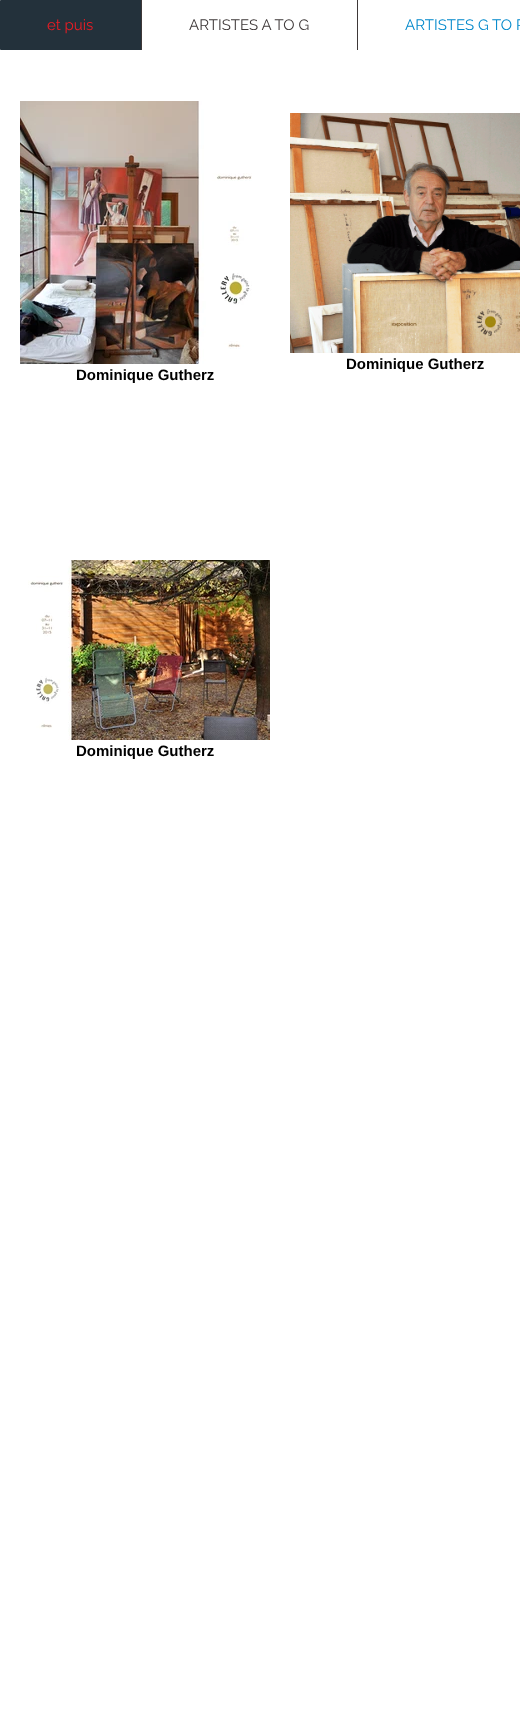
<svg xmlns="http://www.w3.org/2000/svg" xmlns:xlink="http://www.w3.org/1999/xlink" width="520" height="1735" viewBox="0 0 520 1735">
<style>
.cls-1{font:15px Raleway;fill:#ed1c24}
.cls-2{font:15px Raleway;fill:#3e3838}
.cls-3{font:15px Raleway;fill:#0088cb}
.cls-4{font:bold 15px Liberation Sans;fill:#000000}
</style>
<rect width="100%" height="100%" fill="#ffffff"/>
<path fill="#23313b" d="M1 0H141V50H1C.5 50 0 49.5 0 49V1C0 .5 .5 0 1 0Z"/>
<rect fill="#3e3838" x="141" y="0" width="1" height="50"/>
<rect fill="#3e3838" x="357" y="0" width="1" height="50"/>
<image xlink:href="image0.png" x="290" y="113" width="230" height="240"/>
<image xlink:href="image1.png" x="20" y="101" width="232" height="263"/>
<image xlink:href="image2.png" x="28" y="560" width="242" height="180"/>
<text class="cls-1" x="47" y="30">et puis</text>
<text class="cls-2" x="189" y="30">ARTISTES A TO G</text>
<text class="cls-3" x="405" y="30">ARTISTES G TO P</text>
<text class="cls-4" x="346" y="369">Dominique Gutherz</text>
<text class="cls-4" x="76" y="380">Dominique Gutherz</text>
<text class="cls-4" x="76" y="756">Dominique Gutherz</text>
</svg>
